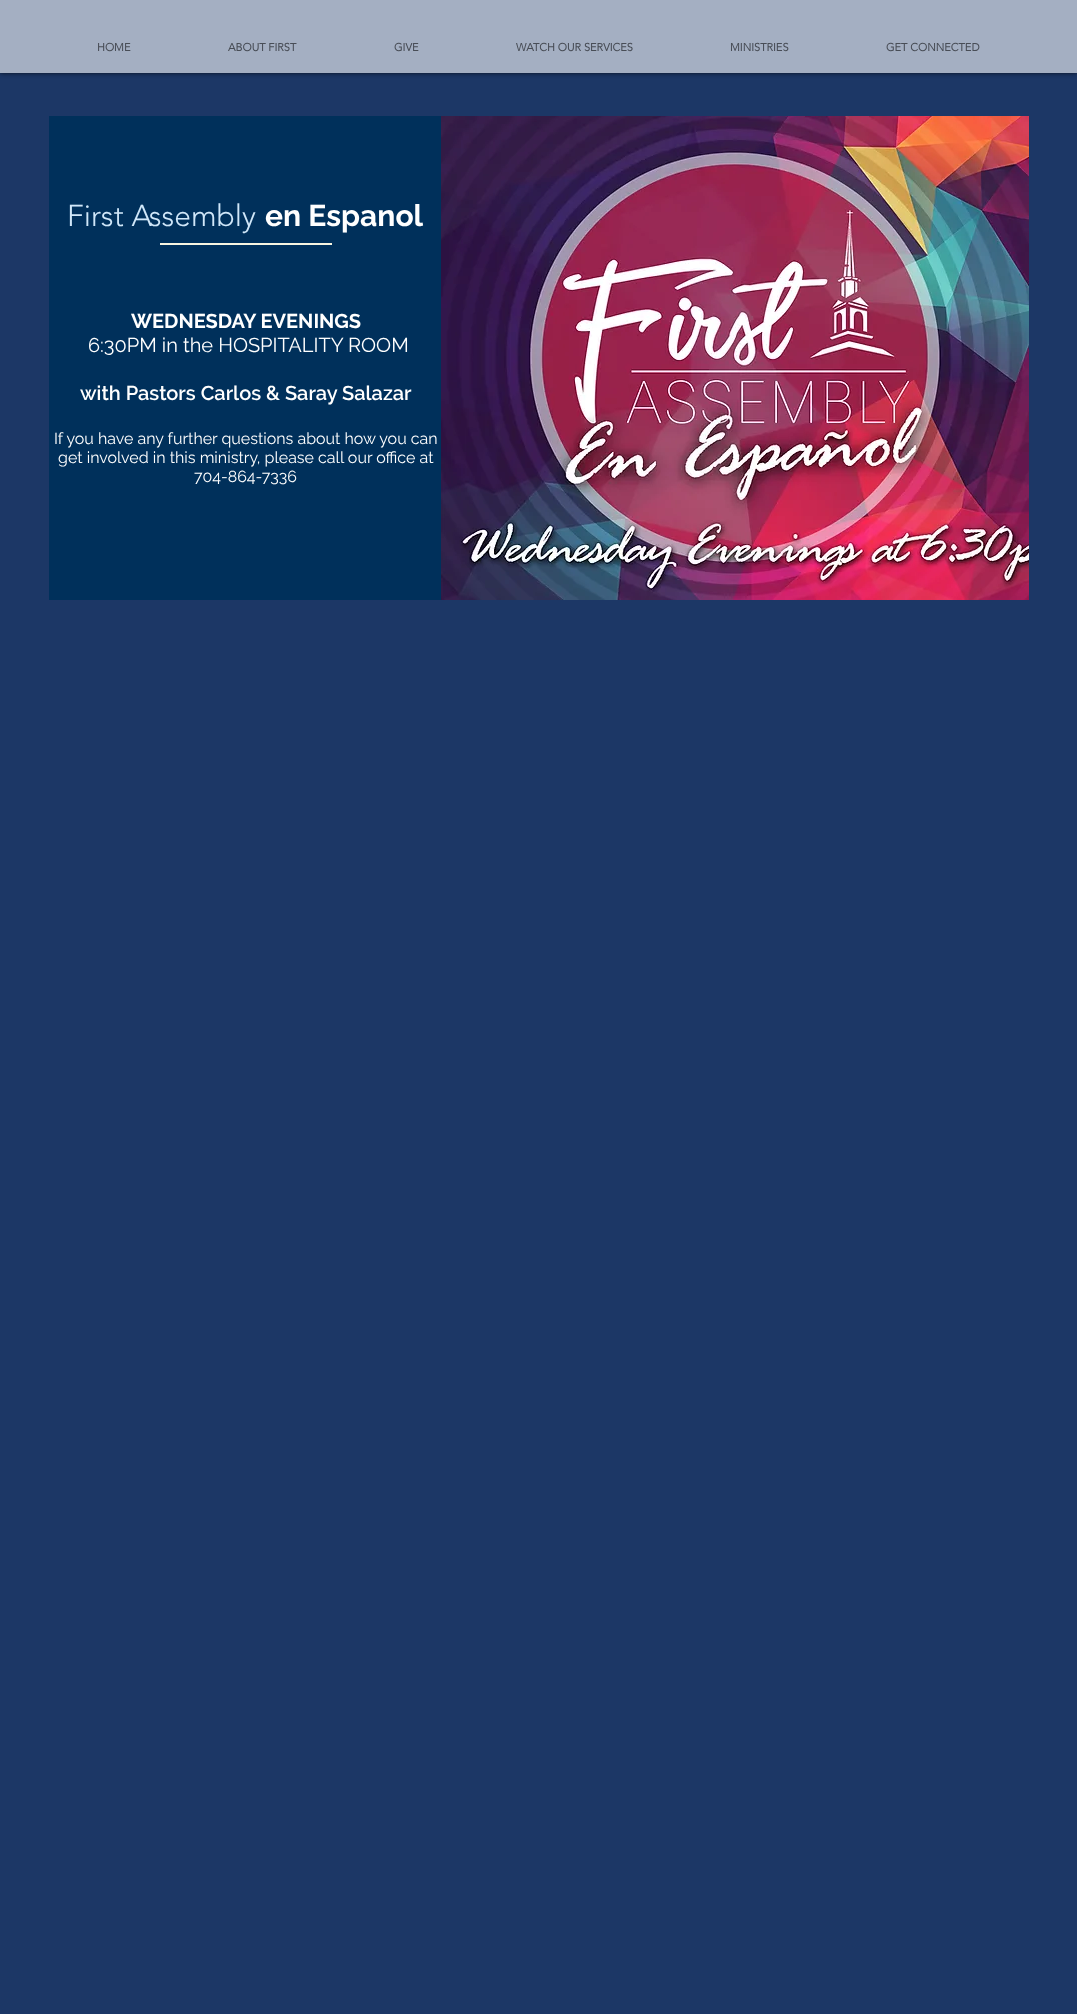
<svg xmlns="http://www.w3.org/2000/svg" xmlns:xlink="http://www.w3.org/1999/xlink" width="1077" height="2014" viewBox="0 0 1077 2014">
<style>
.cls-1{font:bold 11px 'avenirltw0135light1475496';fill:#484d56}
.cls-2{font:300 30px 'avenirltw0135light1475496';fill:#d0e7f9}
.cls-3{font:bold 30px 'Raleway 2';fill:#ffffff}
.cls-4{font:bold 20px Raleway;fill:#ffffff}
.cls-5{font:20px Raleway;fill:#ffffff}
.cls-6{font:600 20px Raleway;fill:#ffffff}
.cls-7{font:16px Raleway;fill:#ffffff}
</style>
<rect width="100%" height="100%" fill="#1c3766"/>
<rect fill="#000000" fill-opacity="0.7" filter="blur(2.5px)" x="0" y="0" width="1077" height="73"/>
<rect fill="#a4afc2" x="0" y="0" width="1077" height="73"/>
<rect fill="#00305b" x="49" y="116" width="392" height="484"/>
<rect fill="#f7f5e1" x="160" y="243" width="172" height="2"/>
<image xlink:href="image0.png" x="441" y="116" width="588" height="484"/>
<text class="cls-1" x="97" y="51">HOME</text>
<text class="cls-1" x="228" y="51">ABOUT FIRST</text>
<text class="cls-1" x="394" y="51">GIVE</text>
<text class="cls-1" x="516" y="51">WATCH OUR SERVICES</text>
<text class="cls-1" x="730" y="51">MINISTRIES</text>
<text class="cls-1" x="886" y="51">GET CONNECTED</text>
<text class="cls-2" x="67" y="226">First Assembly</text>
<text class="cls-3" x="265" y="226">en Espanol</text>
<text class="cls-4" x="131" y="328">WEDNESDAY EVENINGS</text>
<text class="cls-5" x="88" y="352">6:30PM in the HOSPITALITY ROOM</text>
<text class="cls-6" x="80" y="400">with Pastors Carlos &amp; Saray Salazar</text>
<text class="cls-7" x="54" y="444">If you have any further questions about how you can</text>
<text class="cls-7" x="58" y="463">get involved in this ministry, please call our office at</text>
<text class="cls-7" x="194" y="482">704-864-7336</text>
</svg>
